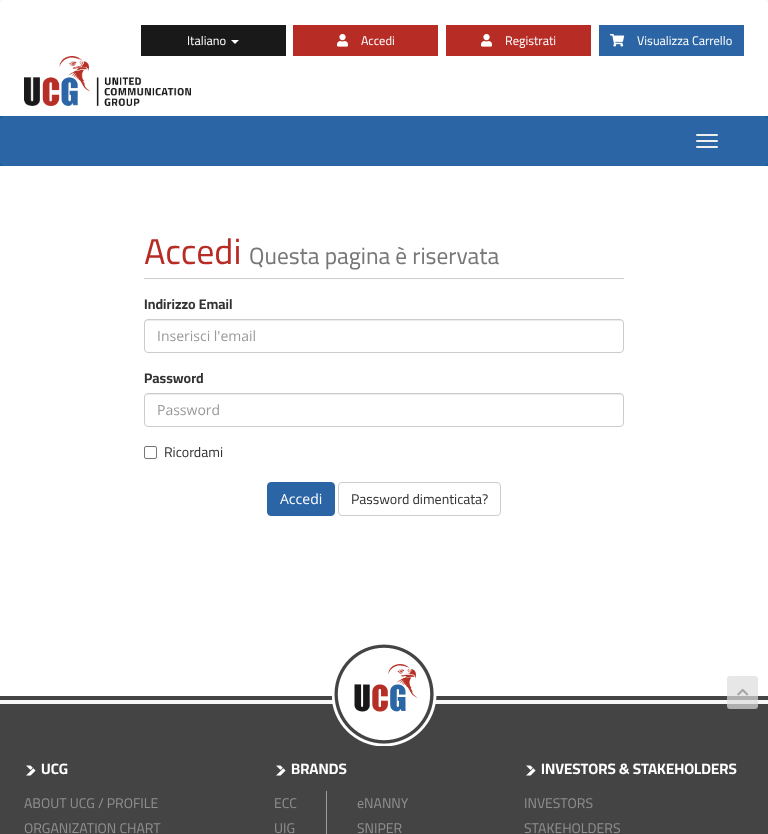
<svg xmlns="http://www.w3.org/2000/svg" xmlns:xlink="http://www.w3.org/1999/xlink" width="768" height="834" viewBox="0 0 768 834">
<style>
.cls-1{font:12.5px Cairo;fill:#ffffff}
.cls-2{font:36px Cairo;fill:#b72d26}
.cls-3{font:23.4px Cairo;fill:#777777}
.cls-4{font:bold 14px Cairo;fill:#333333}
.cls-5{font:14px Open Sans;fill:#999999}
.cls-6{font:14px Cairo;fill:#333333}
.cls-7{font:14px Open Sans;fill:#ffffff}
.cls-8{font:bold 15px Cairo;fill:#ffffff}
.cls-9{font:14px Cairo;fill:#8f8f8f}
</style>
<rect width="100%" height="100%" fill="#f8f8f8"/>
<path fill="#ffffff" d="M5 0H763C766 0 768 2 768 5V116H0V5C0 2 2 0 5 0Z"/>
<rect fill="#1a191a" x="141" y="25" width="145" height="31"/>
<path fill="#ffffff" d="M231 40H239L235 44Z"/>
<rect fill="#b72d26" x="293" y="25" width="145" height="31"/>
<image xlink:href="image0.png" x="337" y="34" width="11" height="13"/>
<rect fill="#b72d26" x="446" y="25" width="145" height="31"/>
<image xlink:href="image0.png" x="481" y="34" width="11" height="13"/>
<rect fill="#2b65a5" x="599" y="25" width="145" height="31"/>
<image xlink:href="image1.png" x="610" y="34" width="15" height="13"/>
<image xlink:href="image2.png" x="24" y="56" width="167" height="50"/>
<rect fill="#006687" x="0" y="116" width="768" height="50"/>
<rect fill="#2b65a5" x="0" y="116" width="768" height="50" rx="4"/>
<rect fill="#eeeeee" x="696" y="134" width="22" height="2" rx="1"/>
<rect fill="#eeeeee" x="696" y="140" width="22" height="2" rx="1"/>
<rect fill="#eeeeee" x="696" y="146" width="22" height="2" rx="1"/>
<rect fill="#ffffff" x="0" y="166" width="768" height="530"/>
<rect fill="#cccccc" x="144" y="278" width="480" height="1"/>
<path fill="#ececec" d="M148 321H620C622 321 623 322 623 324V322L621 320H147C145 320 145 322 145 324C145 322 146 321 148 321Z"/>
<rect fill="none" stroke="#cccccc" x="144.5" y="319.5" width="479" height="33" rx="3.5"/>
<path fill="#ececec" d="M148 395H620C622 395 623 396 623 398C623 396 623 394 621 394H147L145 396V398C145 396 146 395 148 395Z"/>
<rect fill="none" stroke="#cccccc" x="144.5" y="393.5" width="479" height="33" rx="3.5"/>
<rect fill="none" stroke="#767676" x="144.5" y="446.5" width="12" height="12" rx="1.5"/>
<rect fill="#2b65a5" stroke="#2b65a5" x="267.5" y="482.5" width="67" height="33" rx="3.5"/>
<rect fill="none" stroke="#cccccc" x="338.5" y="482.5" width="162" height="33" rx="3.5"/>
<rect fill="#444444" x="0" y="696" width="768" height="4"/>
<rect fill="#444444" x="0" y="704" width="768" height="130"/>
<rect fill="#dddddd" fill-opacity="0.7" x="727" y="676" width="31" height="33" rx="3"/>
<image xlink:href="image3.png" x="737" y="688" width="12" height="8"/>
<image xlink:href="image4.png" x="332" y="644" width="105" height="102"/>
<image xlink:href="image5.png" x="26" y="765" width="10" height="11"/>
<image xlink:href="image5.png" x="276" y="765" width="10" height="11"/>
<rect fill="#9d9d9d" x="326" y="791" width="1" height="43"/>
<image xlink:href="image5.png" x="526" y="765" width="10" height="11"/>
<text class="cls-1" x="187" y="45">Italiano</text>
<text class="cls-1" x="361" y="45">Accedi</text>
<text class="cls-1" x="505" y="45">Registrati</text>
<text class="cls-1" x="637" y="45">Visualizza Carrello</text>
<text class="cls-2" x="144" y="264">Accedi</text>
<text class="cls-3" x="249" y="264">Questa pagina è riservata</text>
<text class="cls-4" x="144" y="309">Indirizzo Email</text>
<text class="cls-5" x="157" y="341">Inserisci l'email</text>
<text class="cls-4" x="144" y="383">Password</text>
<text class="cls-5" x="157" y="415">Password</text>
<text class="cls-6" x="164" y="457">Ricordami</text>
<text class="cls-7" x="280" y="504">Accedi</text>
<text class="cls-6" x="351" y="504">Password dimenticata?</text>
<text class="cls-8" x="41" y="774">UCG</text>
<text class="cls-9"><tspan x="24" y="808">ABOUT UCG / PROFILE</tspan><tspan x="24" y="833">ORGANIZATION CHART</tspan></text>
<text class="cls-8" x="291" y="774">BRANDS</text>
<text class="cls-9"><tspan x="274" y="808">ECC</tspan><tspan x="274" y="833">UIG</tspan></text>
<text class="cls-9"><tspan x="357" y="808">eNANNY</tspan><tspan x="357" y="833">SNIPER</tspan></text>
<text class="cls-8" x="541" y="774">INVESTORS &amp; STAKEHOLDERS</text>
<text class="cls-9"><tspan x="524" y="808">INVESTORS</tspan><tspan x="524" y="833">STAKEHOLDERS</tspan></text>
</svg>
